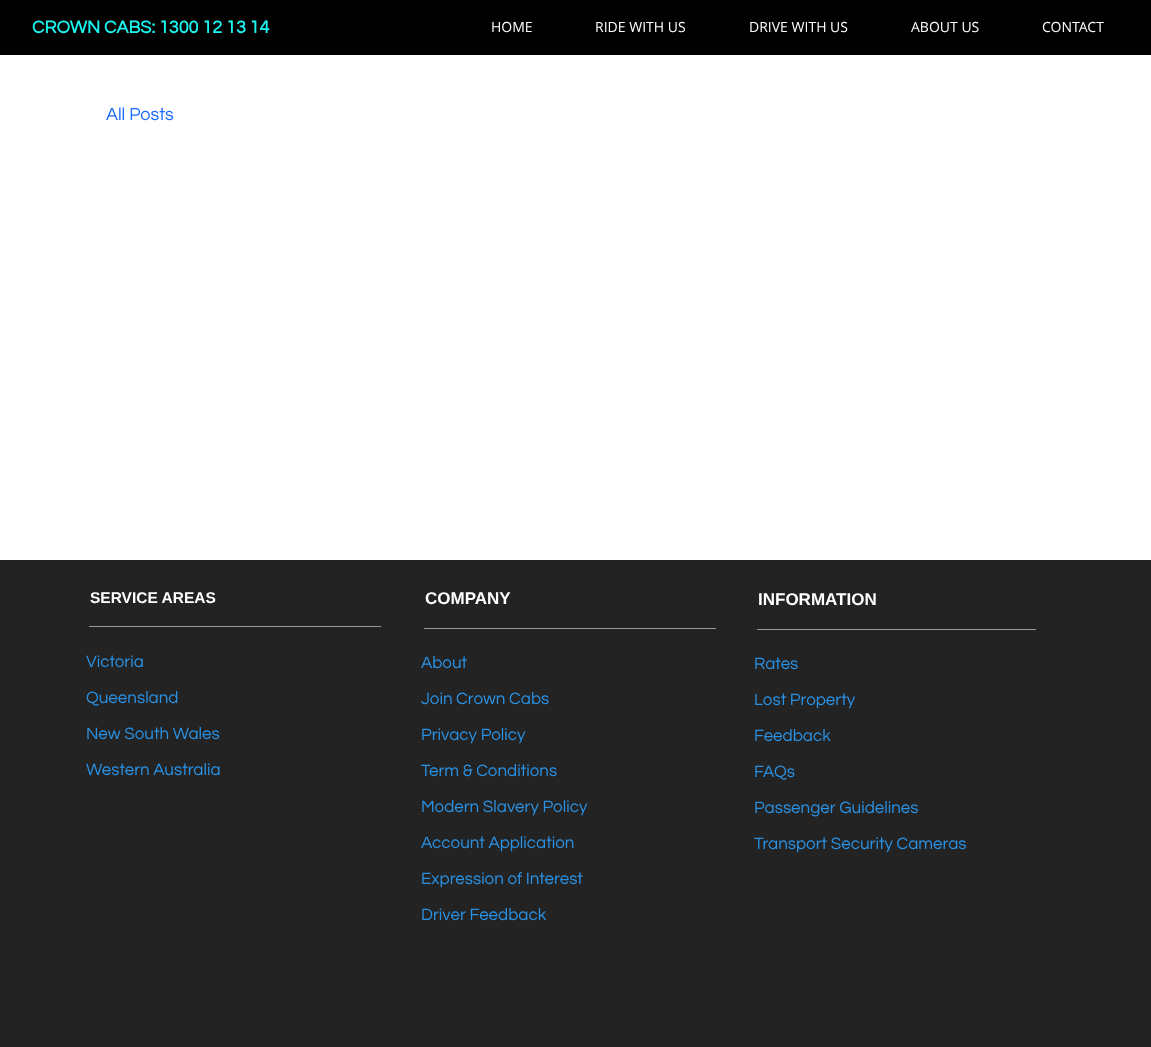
<svg xmlns="http://www.w3.org/2000/svg" xmlns:xlink="http://www.w3.org/1999/xlink" width="1151" height="1047" viewBox="0 0 1151 1047">
<style>
.cls-1{font:bold 18px Questrial;fill:#1bf5f0}
.cls-2{font:14px Open Sans;fill:#ffffff}
.cls-3{font:18px Questrial;fill:#1a6aff}
.cls-4{font:bold 15.5px Liberation Sans;fill:#ffffff}
.cls-5{font:17px Questrial;fill:#2a92e5}
.cls-6{font:bold 17px Liberation Sans;fill:#ffffff}
</style>
<rect width="100%" height="100%" fill="#ffffff"/>
<rect fill="#000000" x="0" y="0" width="1151" height="55"/>
<rect fill="#232323" x="0" y="560" width="1151" height="487"/>
<rect fill="#999999" x="89" y="626" width="292" height="1"/>
<rect fill="#999999" x="424" y="628" width="292" height="1"/>
<rect fill="#999999" x="757" y="629" width="279" height="1"/>
<text class="cls-1" x="32" y="33">CROWN CABS: 1300 12 13 14</text>
<text class="cls-2" x="491" y="32">HOME</text>
<text class="cls-2" x="595" y="32">RIDE WITH US</text>
<text class="cls-2" x="749" y="32">DRIVE WITH US</text>
<text class="cls-2" x="911" y="32">ABOUT US</text>
<text class="cls-2" x="1042" y="32">CONTACT</text>
<text class="cls-3" x="106" y="120">All Posts</text>
<text class="cls-4" x="90" y="603">SERVICE AREAS</text>
<text class="cls-5" x="86" y="667">Victoria</text>
<text class="cls-5" x="86" y="703">Queensland</text>
<text class="cls-5" x="86" y="739">New South Wales</text>
<text class="cls-5" x="86" y="775">Western Australia</text>
<text class="cls-6" x="425" y="604">COMPANY</text>
<text class="cls-5" x="421" y="668">About</text>
<text class="cls-5" x="421" y="704">Join Crown Cabs</text>
<text class="cls-5" x="421" y="740">Privacy Policy</text>
<text class="cls-5" x="421" y="776">Term &amp; Conditions</text>
<text class="cls-5" x="421" y="812">Modern Slavery Policy</text>
<text class="cls-5" x="421" y="848">Account Application</text>
<text class="cls-5" x="421" y="884">Expression of Interest</text>
<text class="cls-5" x="421" y="920">Driver Feedback</text>
<text class="cls-6" x="758" y="605">INFORMATION</text>
<text class="cls-5" x="754" y="669">Rates</text>
<text class="cls-5" x="754" y="705">Lost Property</text>
<text class="cls-5" x="754" y="741">Feedback</text>
<text class="cls-5" x="754" y="777">FAQs</text>
<text class="cls-5" x="754" y="813">Passenger Guidelines</text>
<text class="cls-5" x="754" y="849">Transport Security Cameras</text>
</svg>
